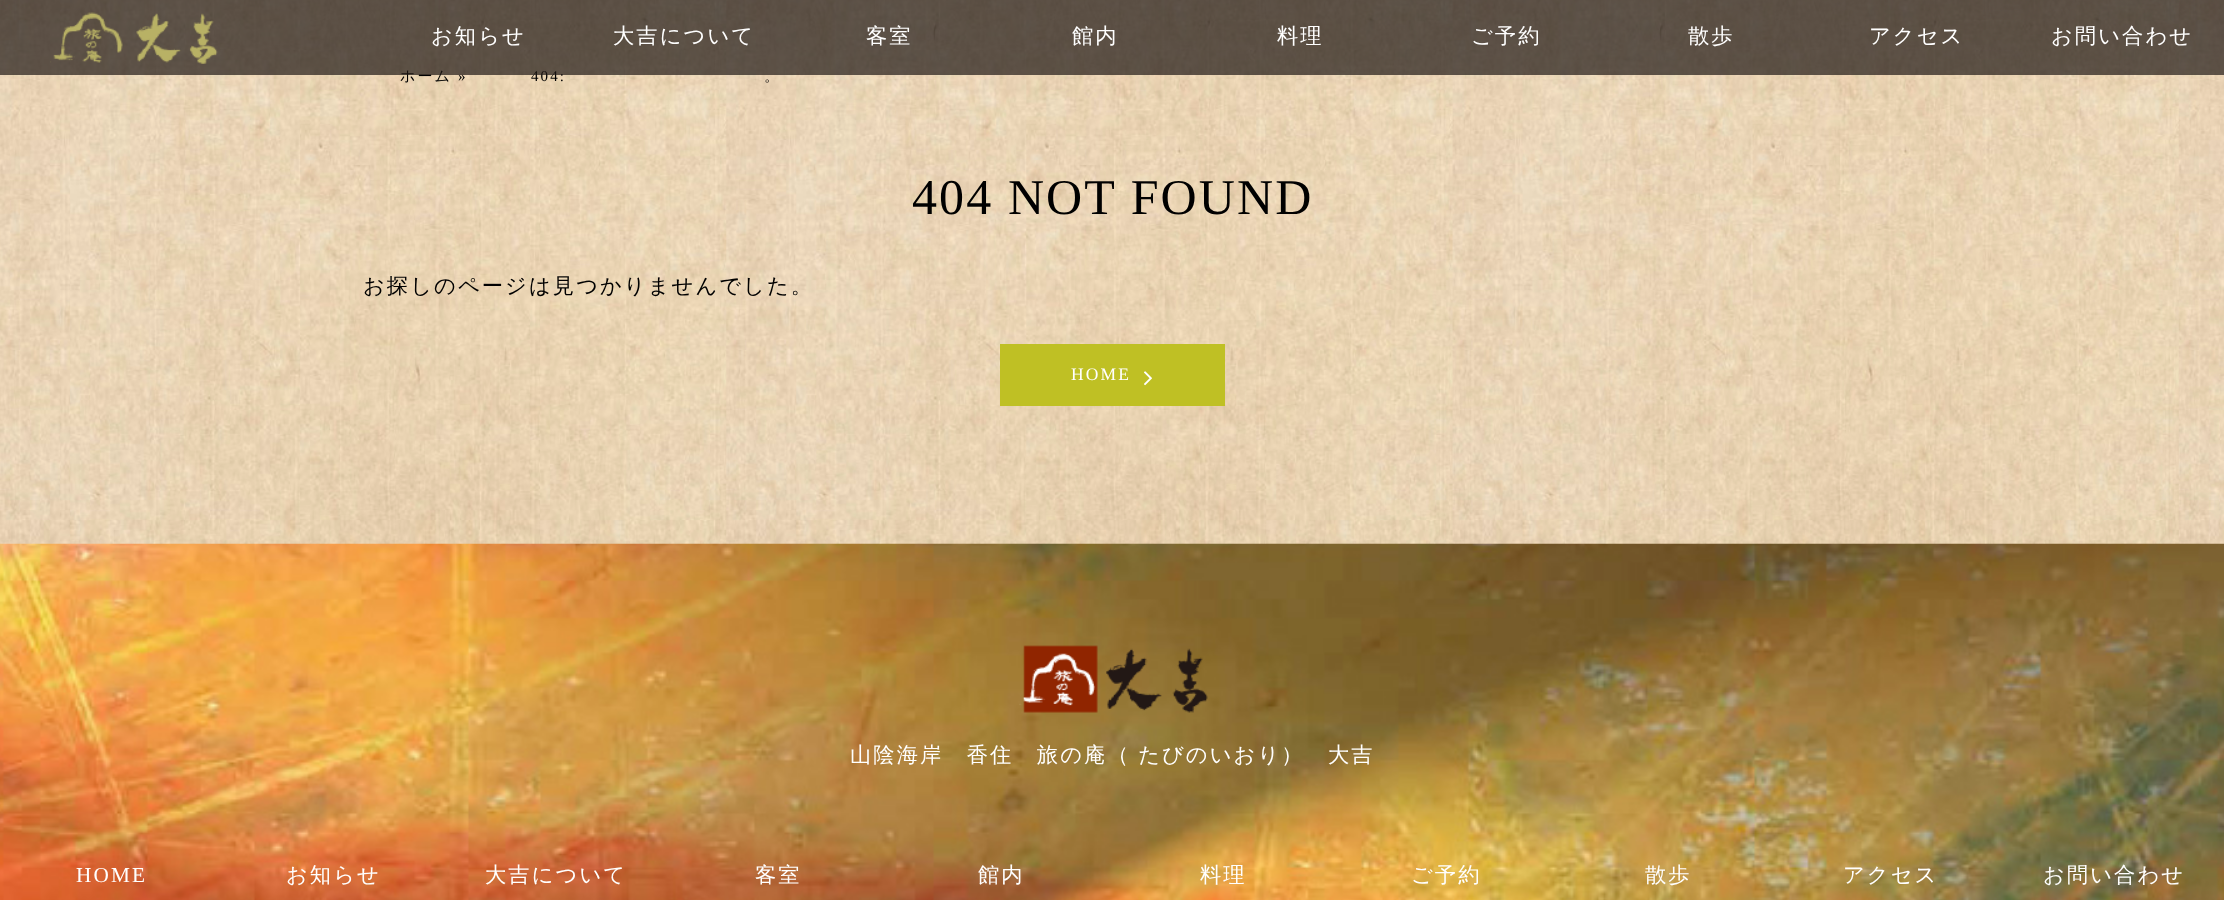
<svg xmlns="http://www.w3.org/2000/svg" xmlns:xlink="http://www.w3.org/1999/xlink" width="2224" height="900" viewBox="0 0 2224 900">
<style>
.cls-1{font:500 15px WenQuanYi Zen Hei;letter-spacing:2.1px;fill:#000000}
.cls-2{font:15px Liberation Serif;letter-spacing:2.1px;fill:#000000}
.cls-3{font:500 21.25px WenQuanYi Zen Hei;letter-spacing:2.1px;fill:#ffffff}
.cls-4{font:50px Liberation Serif;letter-spacing:2.1px;fill:#000000}
.cls-5{font:500 21.25px WenQuanYi Zen Hei;letter-spacing:2.1px;fill:#000000}
.cls-6{font:17.5px Liberation Serif;letter-spacing:2.1px;fill:#ffffff}
.cls-7{font:21.25px Liberation Serif;letter-spacing:2.1px;fill:#ffffff}
</style>
<rect width="100%" height="100%" fill="#ffffff"/>
<image xlink:href="image0.png" x="0" y="0" width="2224" height="544"/>
<rect fill="#bfc024" x="1000" y="344" width="225" height="62"/>
<image xlink:href="image2.png" x="1144" y="371" width="8" height="15"/>
<image xlink:href="image3.png" x="0" y="543" width="2224" height="357"/>
<image xlink:href="image4.png" x="1019" y="645" width="189" height="68"/>
<text class="cls-1" x="400" y="81">ホーム</text>
<text class="cls-2" x="458" y="81">»</text>
<text class="cls-2" x="531" y="81">404:</text>
<rect fill="#1f1816" fill-opacity="0.7" x="0" y="0" width="2224" height="75"/>
<text class="cls-3" x="2051" y="43">お問い合わせ</text>
<text class="cls-3" x="1869" y="43">アクセス</text>
<text class="cls-3" x="1688" y="43">散歩</text>
<text class="cls-3" x="1471" y="43">ご予約</text>
<text class="cls-3" x="1277" y="43">料理</text>
<text class="cls-3" x="1072" y="43">館内</text>
<text class="cls-3" x="866" y="43">客室</text>
<text class="cls-3" x="613" y="43">大吉について</text>
<text class="cls-3" x="431" y="43">お知らせ</text>
<image xlink:href="image1.png" x="50" y="12" width="168" height="52"/>
<text class="cls-1" x="764" y="81">。</text>
<text class="cls-4" x="912" y="214">404 NOT FOUND</text>
<text class="cls-5" x="363" y="293">お探しのページは見つかりませんでした。</text>
<text class="cls-6" x="1071" y="380">HOME</text>
<text class="cls-3" x="850" y="762" word-spacing="-1">山陰海岸　香住　旅の庵（ たびのいおり）　大吉</text>
<text class="cls-7" x="76" y="882">HOME</text>
<text class="cls-3" x="286" y="882">お知らせ</text>
<text class="cls-3" x="485" y="882">大吉について</text>
<text class="cls-3" x="755" y="882">客室</text>
<text class="cls-3" x="978" y="882">館内</text>
<text class="cls-3" x="1200" y="882">料理</text>
<text class="cls-3" x="1411" y="882">ご予約</text>
<text class="cls-3" x="1645" y="882">散歩</text>
<text class="cls-3" x="1843" y="882">アクセス</text>
<text class="cls-3" x="2043" y="882">お問い合わせ</text>
</svg>
